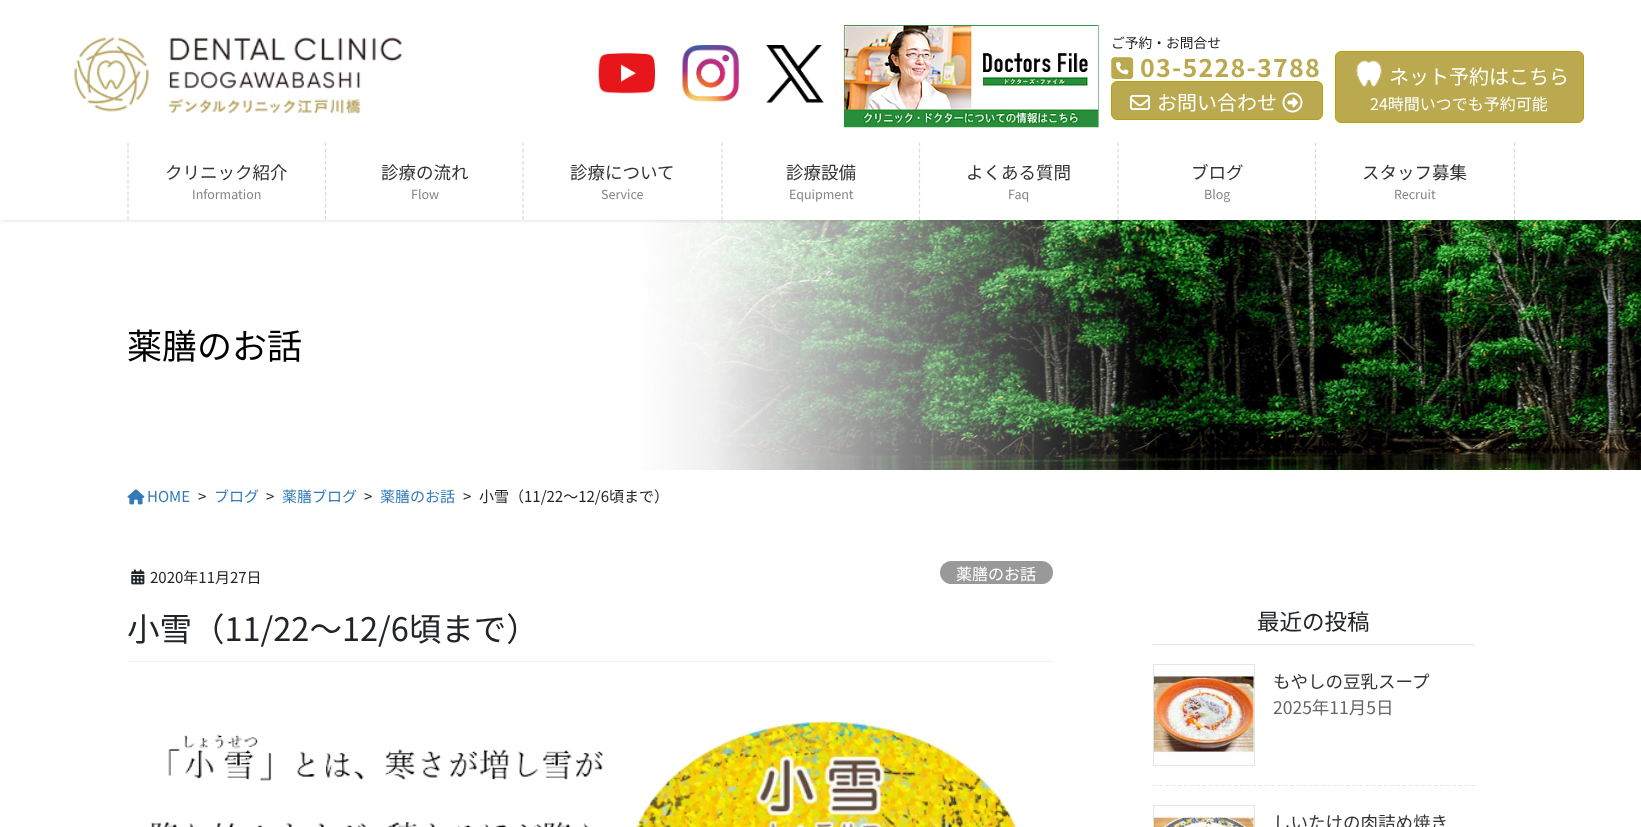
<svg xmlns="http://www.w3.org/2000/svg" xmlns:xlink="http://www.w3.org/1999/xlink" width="1641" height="827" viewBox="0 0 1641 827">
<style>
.cls-1{font:13.75px Noto Sans JP;fill:#212529}
.cls-2{font:bold 25px Noto Sans JP;letter-spacing:1.25px;fill:#baa94e}
.cls-3{font:20px Noto Sans JP;fill:#ffffff}
.cls-4{font:16px Noto Sans JP;fill:#ffffff}
.cls-5{font:17.5px Noto Sans JP;fill:#333333}
.cls-6{font:12.5px Noto Sans JP;fill:#858585}
.cls-7{font:35px Noto Sans JP;fill:#000000}
.cls-8{font:15px Noto Sans JP;fill:#337ab7}
.cls-9{font:15px Noto Sans JP;fill:#212529}
.cls-10{font:32.5px Noto Sans JP;fill:#212529}
.cls-11{font:22.5px Noto Sans JP;fill:#212529}
.cls-12{font:17.5px Noto Sans JP;fill:#666666}
</style>
<defs>
<clipPath id="clip1"><rect x="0" y="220" width="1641" height="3"/></clipPath>
</defs>
<rect width="100%" height="100%" fill="#ffffff"/>
<image xlink:href="image9.png" x="0" y="220" width="1641" height="250"/>
<g clip-path="url(#clip1)">
<rect fill="#000000" fill-opacity="0.1" filter="blur(2px)" x="0" y="1" width="1641" height="220"/>
</g>
<image xlink:href="image0.png" x="74" y="37" width="328" height="77"/>
<image xlink:href="image1.png" x="598" y="53" width="57" height="41"/>
<image xlink:href="image2.png" x="682" y="45" width="57" height="57"/>
<image xlink:href="image3.png" x="766" y="45" width="58" height="58"/>
<image xlink:href="image4.png" x="843" y="25" width="256" height="103"/>
<image xlink:href="image5.png" x="1111" y="57" width="23" height="23"/>
<rect fill="#baa94e" stroke="#ba9f09" x="1111.5" y="81.5" width="211" height="38" rx="5.5"/>
<image xlink:href="image6.png" x="1130" y="95" width="20" height="15"/>
<image xlink:href="image7.png" x="1282" y="92" width="21" height="21"/>
<rect fill="#baa94e" stroke="#ba9f09" x="1335.5" y="51.5" width="248" height="71" rx="5.5"/>
<image xlink:href="image8.png" x="1356" y="60" width="26" height="27"/>
<path fill="none" stroke="#d9d9d9" stroke-width="1.2" stroke-dasharray="3.75 2.4" d="M128 142.5V220"/>
<path fill="none" stroke="#d9d9d9" stroke-width="1.2" stroke-dasharray="3.75 2.4" d="M325.5 142.5V220"/>
<path fill="none" stroke="#d9d9d9" stroke-width="1.2" stroke-dasharray="3.75 2.4" d="M523 142.5V220"/>
<path fill="none" stroke="#d9d9d9" stroke-width="1.2" stroke-dasharray="3.75 2.4" d="M722 142.5V220"/>
<path fill="none" stroke="#d9d9d9" stroke-width="1.2" stroke-dasharray="3.75 2.4" d="M919.5 142.5V220"/>
<path fill="none" stroke="#d9d9d9" stroke-width="1.2" stroke-dasharray="3.75 2.4" d="M1118 142.5V220"/>
<path fill="none" stroke="#d9d9d9" stroke-width="1.2" stroke-dasharray="3.75 2.4" d="M1514.5 142.5V220"/>
<path fill="none" stroke="#d9d9d9" stroke-width="1.2" stroke-dasharray="3.75 2.4" d="M1315.5 142.5V220"/>
<image xlink:href="image10.png" x="127" y="489" width="18" height="16"/>
<rect fill="#f2f2f2" x="128" y="661" width="925" height="1"/>
<image xlink:href="image11.png" x="131" y="569" width="14" height="16"/>
<rect fill="#999999" x="940" y="561" width="113" height="23" rx="11.5"/>
<image xlink:href="image12.png" x="150" y="720" width="867" height="107"/>
<rect fill="#e6e6e6" x="1153" y="644" width="322" height="1"/>
<path fill="none" stroke="#e5e5e5" stroke-width="1.2" stroke-dasharray="3.75 2.5" d="M1152.5 785.5H1475"/>
<rect fill="none" stroke="#e5e5e5" x="1153.5" y="664.5" width="101" height="101"/>
<image xlink:href="image13.png" x="1153" y="675" width="101" height="84"/>
<rect fill="none" stroke="#e5e5e5" x="1153.5" y="805.5" width="101" height="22"/>
<image xlink:href="image14.png" x="1153" y="816" width="101" height="11"/>
<text class="cls-1" x="1111" y="48">ご予約・お問合せ</text>
<text class="cls-2" x="1140" y="77">03-5228-3788</text>
<text class="cls-3" x="1157" y="110">お問い合わせ</text>
<text class="cls-3" x="1389" y="84">ネット予約はこちら</text>
<text class="cls-4" x="1370" y="110">24時間いつでも予約可能</text>
<text class="cls-5" x="165" y="179">クリニック紹介</text>
<text class="cls-6" x="192" y="199">Information</text>
<text class="cls-5" x="381" y="179">診療の流れ</text>
<text class="cls-6" x="411" y="199">Flow</text>
<text class="cls-5" x="570" y="179">診療について</text>
<text class="cls-6" x="601" y="199">Service</text>
<text class="cls-5" x="786" y="179">診療設備</text>
<text class="cls-6" x="789" y="199">Equipment</text>
<text class="cls-5" x="966" y="179">よくある質問</text>
<text class="cls-6" x="1008" y="199">Faq</text>
<text class="cls-5" x="1191" y="179">ブログ</text>
<text class="cls-6" x="1204" y="199">Blog</text>
<text class="cls-5" x="1362" y="179">スタッフ募集</text>
<text class="cls-6" x="1394" y="199">Recruit</text>
<text class="cls-7" x="127" y="359">薬膳のお話</text>
<text class="cls-8" x="147" y="502">HOME</text>
<text class="cls-9" x="198" y="502">&gt;</text>
<text class="cls-8" x="214" y="502">ブログ</text>
<text class="cls-9" x="266" y="502">&gt;</text>
<text class="cls-8" x="282" y="502">薬膳ブログ</text>
<text class="cls-9" x="364" y="502">&gt;</text>
<text class="cls-8" x="380" y="502">薬膳のお話</text>
<text class="cls-9" x="463" y="502">&gt;</text>
<text class="cls-9" x="479" y="502">小雪（11/22～12/6頃まで）</text>
<text class="cls-9" x="150" y="583">2020年11月27日</text>
<text class="cls-4" x="956" y="580">薬膳のお話</text>
<text class="cls-10" x="127" y="641">小雪（11/22～12/6頃まで）</text>
<text class="cls-11" x="1257" y="630">最近の投稿</text>
<text class="cls-5" x="1273" y="688">もやしの豆乳スープ</text>
<text class="cls-12" x="1273" y="714">2025年11月5日</text>
<text class="cls-5" x="1273" y="829">しいたけの肉詰め焼き</text>
</svg>
